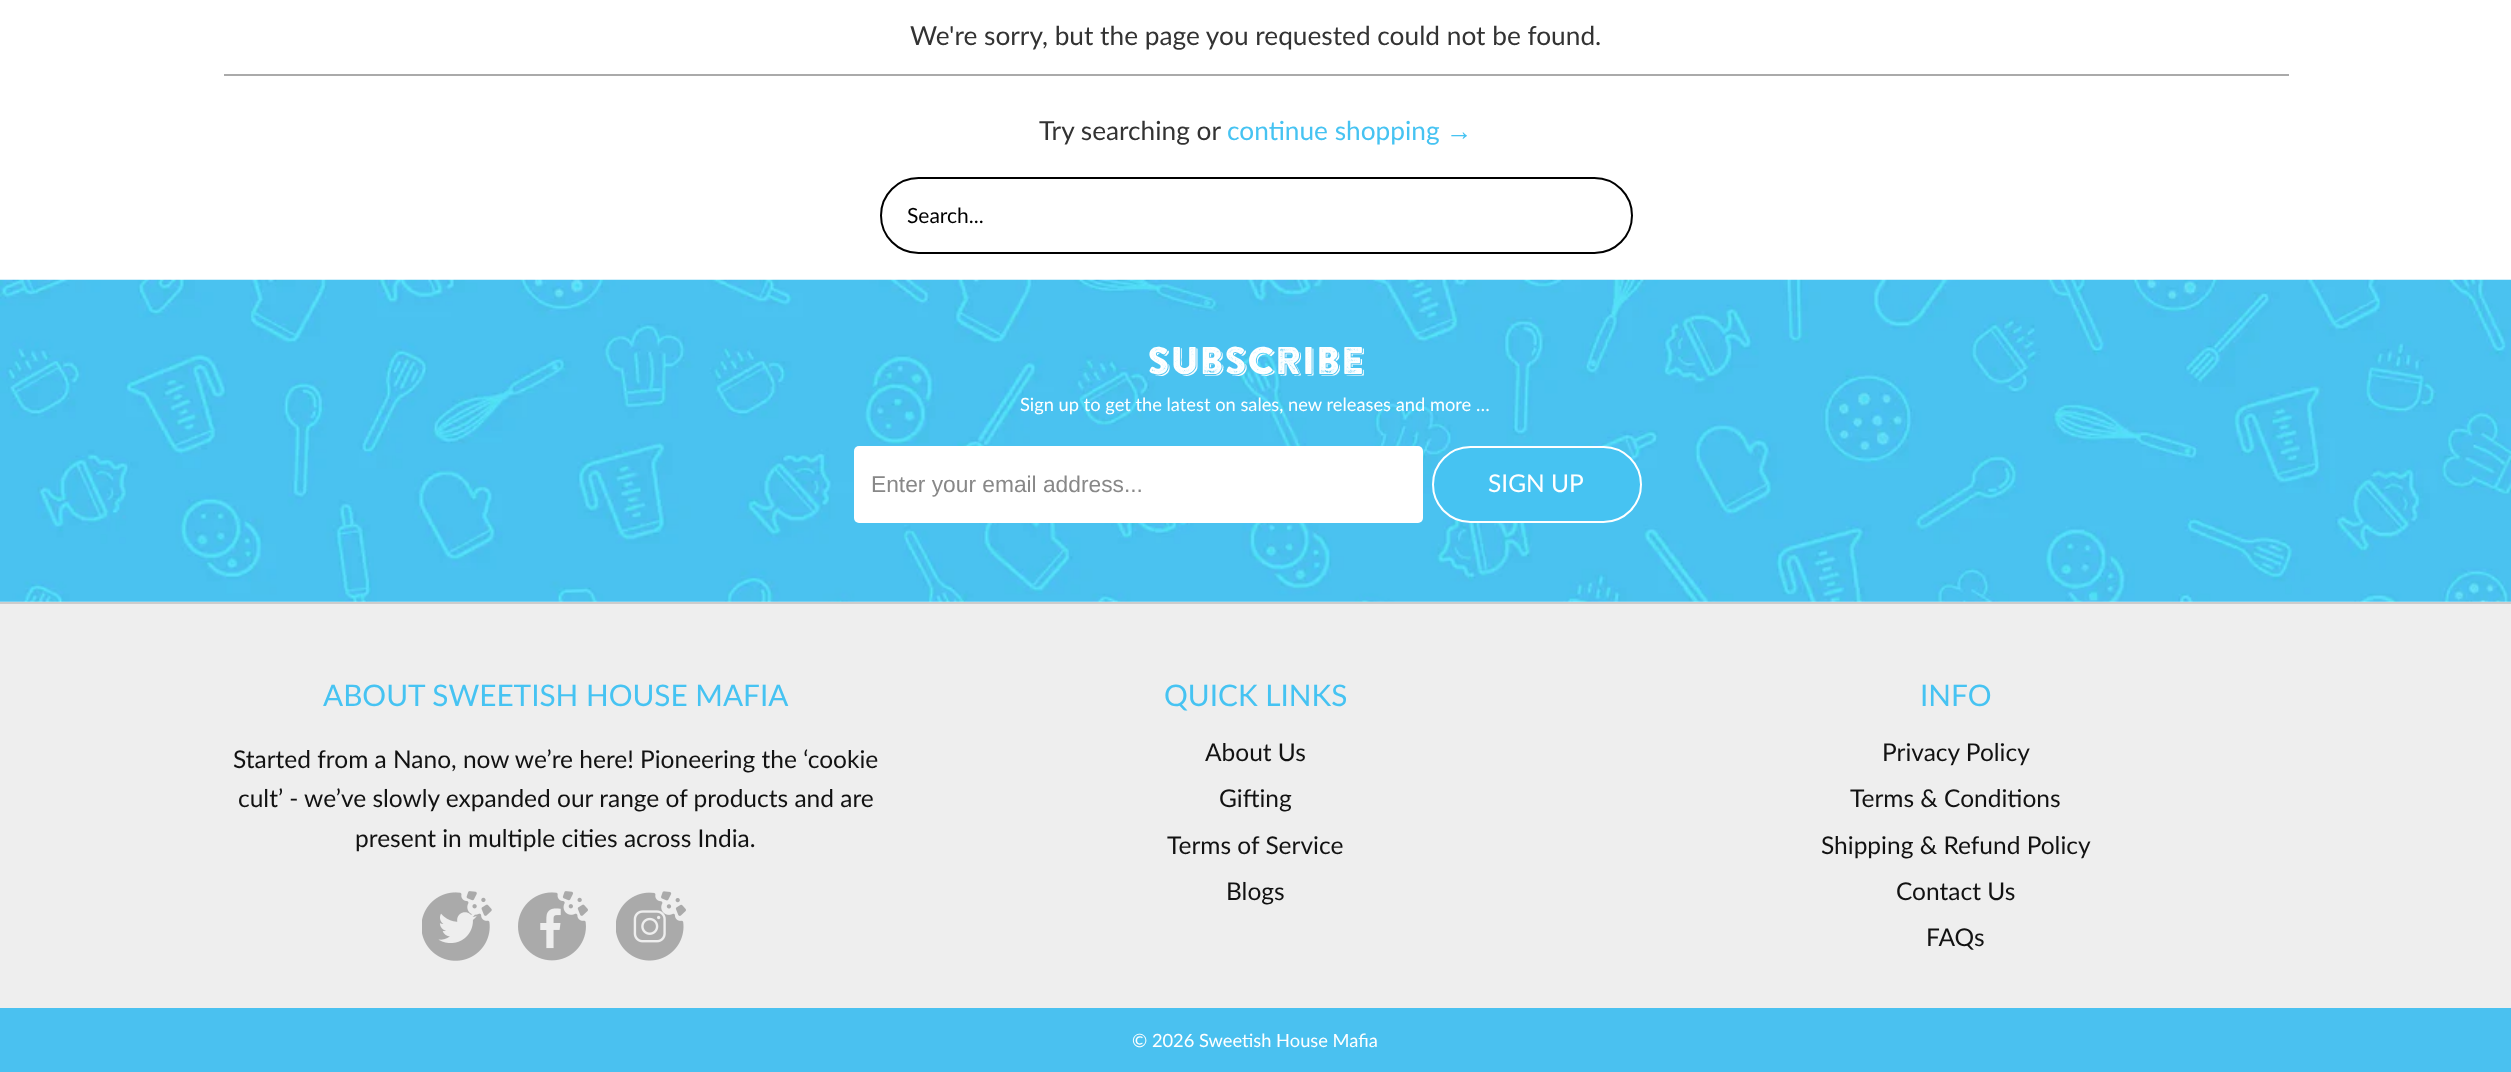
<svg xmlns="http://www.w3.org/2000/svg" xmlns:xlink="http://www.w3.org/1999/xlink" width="2511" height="1072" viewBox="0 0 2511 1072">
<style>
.cls-1{font:26.25px Lato;fill:#333333}
.cls-2{font:26.25px Lato;fill:#46c3f2}
.cls-3{font:26.25px Liberation Sans;fill:#46c3f2}
.cls-4{font:21px Lato;fill:#000000}
.cls-5{font:300 38.5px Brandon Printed;fill:#ffffff}
.cls-6{font:18.3px Lato;fill:#ffffff}
.cls-7{font:22.75px Liberation Sans;fill:#888888}
.cls-8{font:24.5px Lato;fill:#ffffff}
.cls-9{font:29.75px Lato;fill:#46c3f2}
.cls-10{font:24.5px Lato;fill:#121212}
</style>
<rect width="100%" height="100%" fill="#ffffff"/>
<rect fill="#aaaaaa" x="224" y="74" width="2065" height="2"/>
<rect fill="none" stroke="#000000" stroke-width="2" x="881" y="178" width="751" height="75" rx="37.5"/>
<image xlink:href="image0.png" x="0" y="279" width="2511" height="323"/>
<rect fill="#ffffff" x="854" y="446" width="569" height="77" rx="5"/>
<rect fill="#46c3f2" stroke="#ffffff" stroke-width="2" x="1433" y="447" width="208" height="75" rx="37.5"/>
<rect fill="#eeeeee" x="0" y="604" width="2511" height="404"/>
<rect fill="#cccccc" x="0" y="602" width="2511" height="2"/>
<image xlink:href="image1.png" x="422" y="891" width="70" height="70"/>
<image xlink:href="image2.png" x="518" y="891" width="70" height="70"/>
<image xlink:href="image3.png" x="616" y="891" width="70" height="70"/>
<rect fill="#4ac1f0" x="0" y="1008" width="2511" height="64"/>
<text class="cls-1" x="910" y="45">We're sorry, but the page you requested could not be found.</text>
<text class="cls-1" x="1039" y="140">Try searching or</text>
<text class="cls-2" x="1227" y="140">continue shopping</text>
<text class="cls-3" x="1446" y="140">→</text>
<text class="cls-4" x="907" y="223">Search...</text>
<text class="cls-5" x="1147" y="374">Subscribe</text>
<text class="cls-6" x="1020" y="411">Sign up to get the latest on sales, new releases and more …</text>
<text class="cls-7" x="871" y="492">Enter your email address...</text>
<text class="cls-8" x="1488" y="492">SIGN UP</text>
<text class="cls-9" x="323" y="706">ABOUT SWEETISH HOUSE MAFIA</text>
<text class="cls-10" x="233" y="768">Started from a Nano, now we’re here! Pioneering the ‘cookie</text>
<text class="cls-10" x="238" y="807">cult’ - we’ve slowly expanded our range of products and are</text>
<text class="cls-10" x="355" y="847">present in multiple cities across India.</text>
<text class="cls-9" x="1164" y="706">QUICK LINKS</text>
<text class="cls-10" x="1205" y="761">About Us</text>
<text class="cls-10" x="1219" y="807">Gifting</text>
<text class="cls-10" x="1167" y="854">Terms of Service</text>
<text class="cls-10" x="1226" y="900">Blogs</text>
<text class="cls-9" x="1920" y="706">INFO</text>
<text class="cls-10" x="1882" y="761">Privacy Policy</text>
<text class="cls-10" x="1850" y="807">Terms &amp; Conditions</text>
<text class="cls-10" x="1821" y="854">Shipping &amp; Refund Policy</text>
<text class="cls-10" x="1896" y="900">Contact Us</text>
<text class="cls-10" x="1926" y="946">FAQs</text>
<text class="cls-6" x="1132" y="1047">© 2026 Sweetish House Mafia</text>
</svg>
